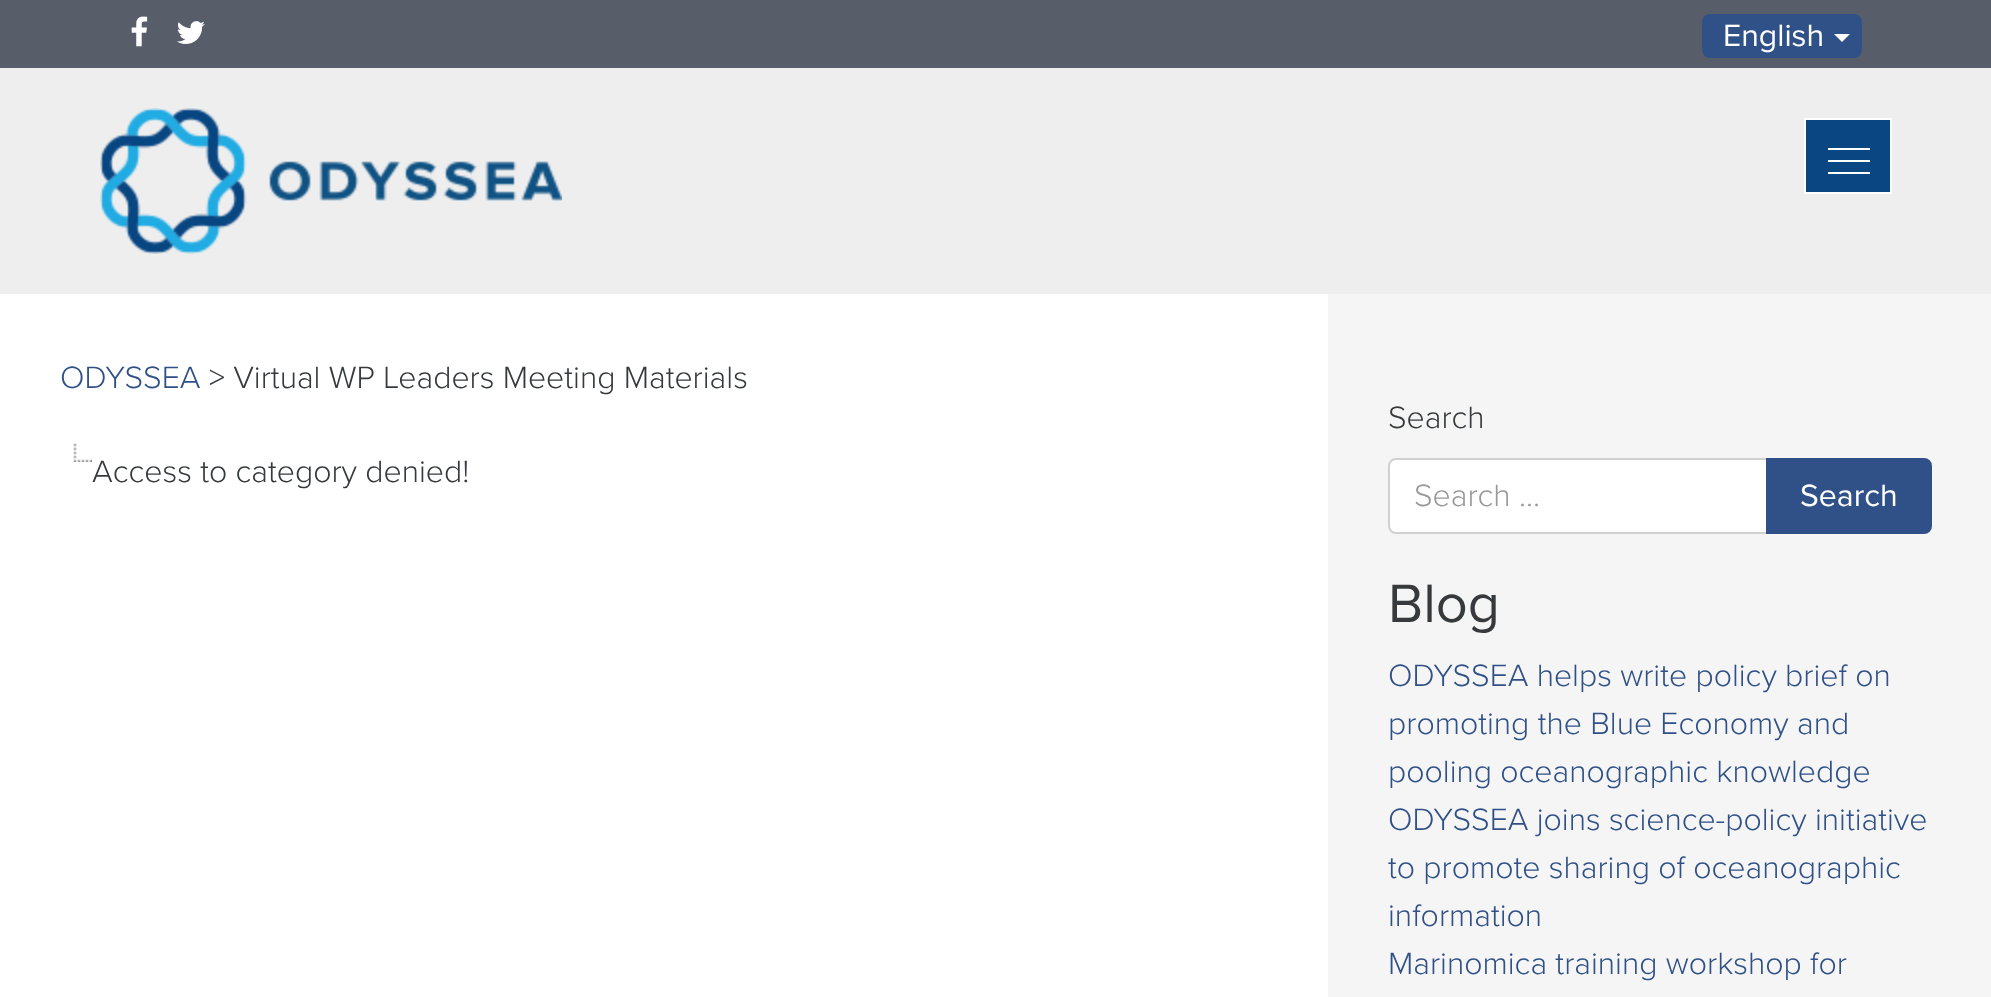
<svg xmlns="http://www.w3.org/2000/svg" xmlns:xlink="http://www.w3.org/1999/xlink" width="1991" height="997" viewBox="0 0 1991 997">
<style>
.cls-1{font:32px Proxima Nova;fill:#ffffff}
.cls-2{font:300 32px Proxima Nova;fill:#305187}
.cls-3{font:300 32px Proxima Nova;fill:#373a3c}
.cls-4{font:300 32px Proxima Nova;fill:#999999}
.cls-5{font:56px Proxima Nova;fill:#373a3c}
</style>
<rect width="100%" height="100%" fill="#ffffff"/>
<rect fill="#575e6a" x="0" y="0" width="1991" height="68"/>
<image xlink:href="image0.png" x="131" y="16" width="17" height="31"/>
<image xlink:href="image1.png" x="177" y="21" width="28" height="23"/>
<rect fill="#305187" stroke="#305187" stroke-width="2" x="1703" y="15" width="158" height="42" rx="7"/>
<path fill="#ffffff" d="M1834 34H1850L1842 42Z"/>
<rect fill="#eeeeee" x="0" y="68" width="1991" height="226"/>
<image xlink:href="image2.png" x="100" y="108" width="462" height="146"/>
<rect fill="#0a4681" stroke="#ffffff" stroke-width="2" x="1805" y="119" width="86" height="74"/>
<rect fill="#ffffff" x="1828" y="148" width="42" height="2"/>
<rect fill="#ffffff" x="1828" y="160" width="42" height="2"/>
<rect fill="#ffffff" x="1828" y="172" width="42" height="2"/>
<image xlink:href="image3.png" x="73" y="443" width="19" height="19"/>
<rect fill="#f5f5f5" x="1328" y="294" width="663" height="703"/>
<path fill="#ffffff" d="M1396 460H1766V532H1396C1392.5 532 1390 529.5 1390 526V466C1390 462.5 1392.5 460 1396 460Z"/>
<path fill="none" stroke="#000000" stroke-opacity="0.15" stroke-width="2" d="M1396 459H1767V533H1396C1392 533 1389 530 1389 526V466C1389 462 1392 459 1396 459Z"/>
<path fill="#305187" stroke="#305187" stroke-width="2" d="M1767 459H1924C1928 459 1931 462 1931 466V526C1931 530 1928 533 1924 533H1767Z"/>
<text class="cls-1" x="1723" y="46">English</text>
<text class="cls-2" x="60" y="388">ODYSSEA</text>
<text class="cls-3" x="209" y="388">&gt; Virtual WP Leaders Meeting Materials</text>
<text class="cls-3" x="92" y="482">Access to category denied!</text>
<text class="cls-3" x="1388" y="428">Search</text>
<text class="cls-4" x="1414" y="506">Search …</text>
<text class="cls-1" x="1800" y="506">Search</text>
<text class="cls-5" x="1388" y="622">Blog</text>
<text class="cls-2"><tspan x="1388" y="686">ODYSSEA helps write policy brief on</tspan><tspan x="1388" y="734">promoting the Blue Economy and</tspan><tspan x="1388" y="782">pooling oceanographic knowledge</tspan><tspan x="1388" y="830">ODYSSEA joins science-policy initiative</tspan><tspan x="1388" y="878">to promote sharing of oceanographic</tspan><tspan x="1388" y="926">information</tspan><tspan x="1388" y="974">Marinomica training workshop for</tspan></text>
</svg>
